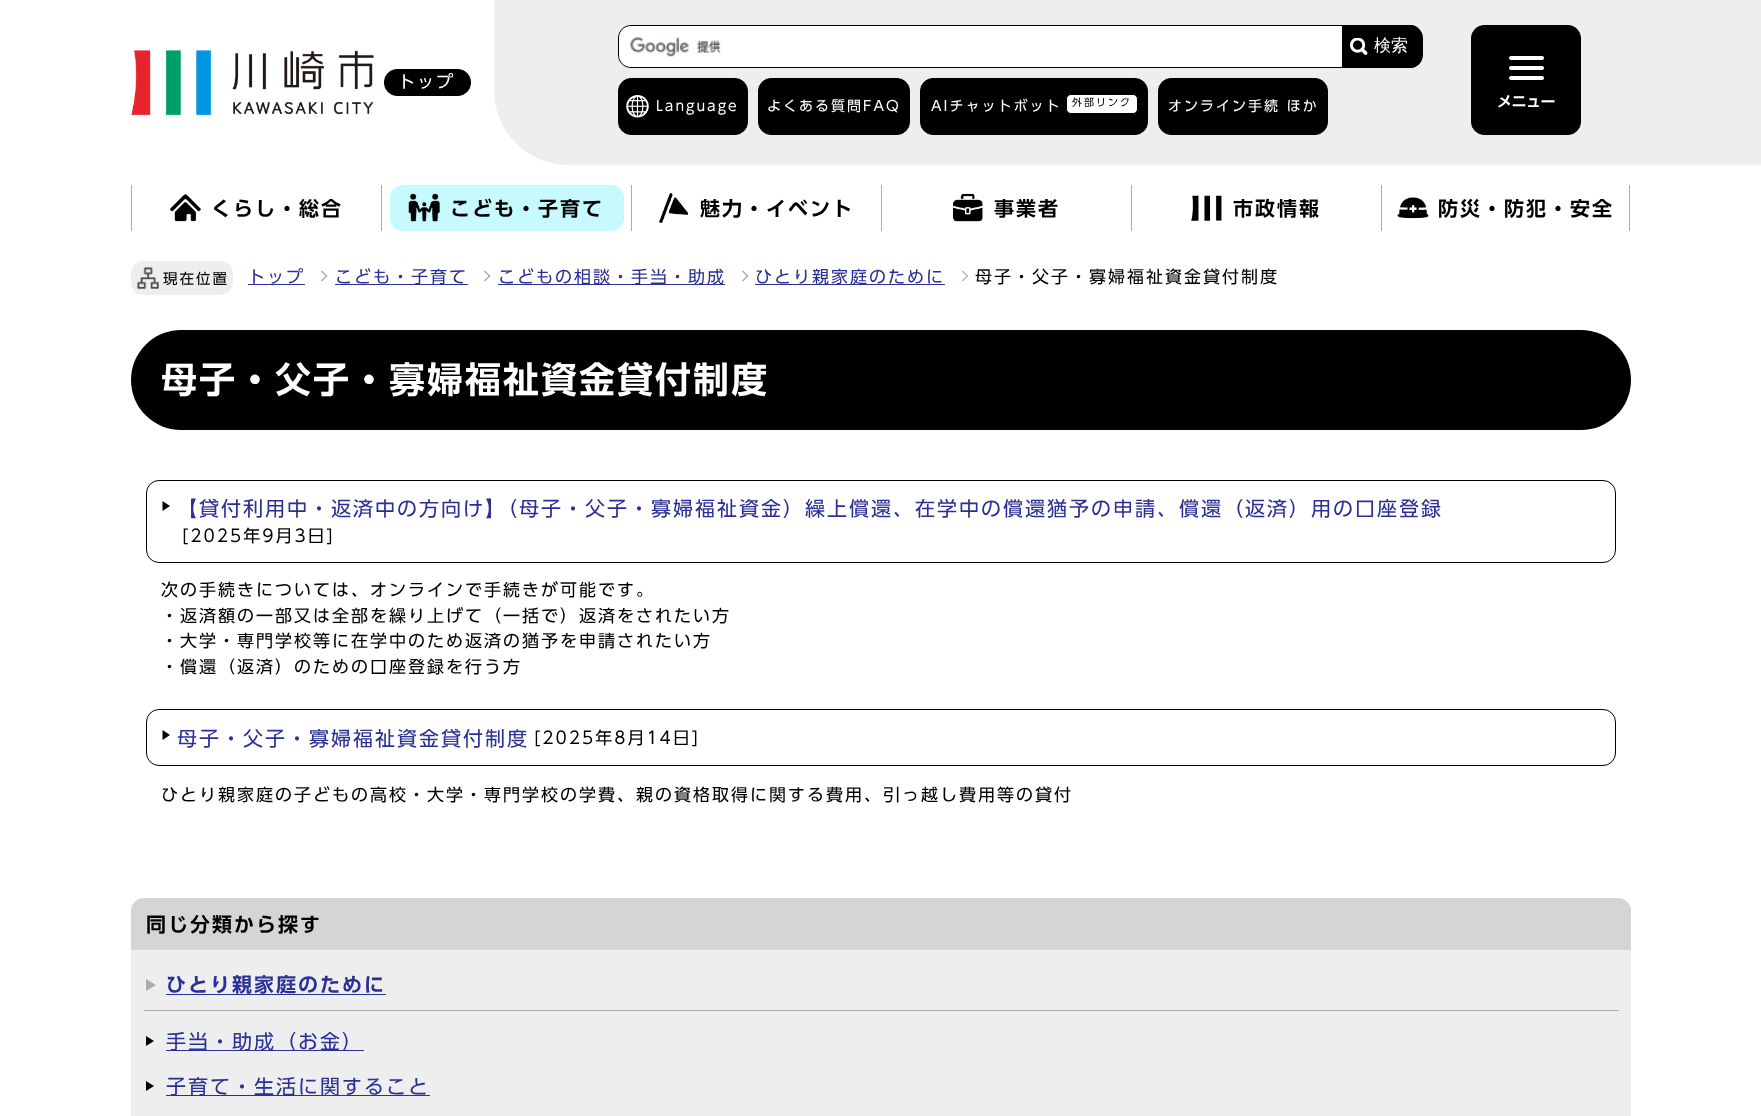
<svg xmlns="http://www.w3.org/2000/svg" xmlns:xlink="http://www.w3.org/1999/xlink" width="1761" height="1116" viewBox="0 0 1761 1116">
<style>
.cls-1{font:17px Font;letter-spacing:2px;fill:#ffffff}
.cls-2{font:500 17px WenQuanYi Zen Hei;fill:#ffffff}
.cls-3{font:14px Font;letter-spacing:2px;fill:#ffffff}
.cls-4{font:10px Font;letter-spacing:2px;fill:#000000}
.cls-5{font:600 15px Font;letter-spacing:-0.5px;fill:#ffffff}
.cls-6{font:600 20px Font;letter-spacing:2px;fill:#000000}
.cls-7{font:14.5px Font;letter-spacing:2px;fill:#000000}
.cls-8{font:17px Font;letter-spacing:2px;fill:#2b3095}
.cls-9{font:17px Font;letter-spacing:2px;fill:#000000}
.cls-10{font:600 36px Font;letter-spacing:2px;fill:#ffffff}
.cls-11{font:20px Font;letter-spacing:2px;fill:#2b3095}
.cls-12{font:600 20px Font;letter-spacing:2px;fill:#2b3095}
</style>
<rect width="100%" height="100%" fill="#ffffff"/>
<image xlink:href="image0.png" x="131" y="50" width="243" height="65"/>
<rect fill="#000000" stroke="#000000" x="384.5" y="69.5" width="86" height="26" rx="12.5"/>
<path fill="#eeeeee" d="M494 0H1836V165H569C527.5 165 494 131.5 494 90Z"/>
<path fill="#ffffff" d="M631 25H1343V68H631C624 68 618 62 618 55V38C618 31 624 25 631 25Z"/>
<image xlink:href="image1.png" x="630" y="37" width="91" height="20"/>
<path fill="none" stroke="#000000" d="M631 25.5H1342.5V67.5H631C624 67.5 618.5 62 618.5 55V38C618.5 31 624 25.5 631 25.5Z"/>
<path fill="#000000" d="M1343 25H1410C1417 25 1423 31 1423 38V55C1423 62 1417 68 1410 68H1343Z"/>
<image xlink:href="image2.png" x="1350" y="38" width="18" height="17"/>
<path fill="#000000" fill-rule="evenodd" d="M1342 25H1410C1417 25 1422 31 1422 38V55C1422 62 1417 68 1410 68H1342ZM1342 26H1410C1416 26 1421 31 1421 38V55C1421 61 1416 66 1410 66H1342Z"/>
<rect fill="#000000" stroke="#000000" x="618.5" y="78.5" width="129" height="56" rx="12.5"/>
<image xlink:href="image3.png" x="626" y="95" width="23" height="23"/>
<rect fill="#000000" stroke="#000000" x="758.5" y="78.5" width="151" height="56" rx="12.5"/>
<rect fill="#000000" stroke="#000000" x="920.5" y="78.5" width="227" height="56" rx="12.5"/>
<rect fill="#ffffff" stroke="#000000" x="1066.5" y="94.5" width="71" height="19" rx="4.5"/>
<rect fill="#000000" stroke="#000000" x="1158.5" y="78.5" width="169" height="56" rx="12.5"/>
<rect fill="#000000" stroke="#000000" x="1471.5" y="25.5" width="109" height="109" rx="12.5"/>
<rect fill="#ffffff" x="1509" y="56" width="35" height="4" rx="2"/>
<rect fill="#ffffff" x="1509" y="66" width="35" height="4" rx="2"/>
<rect fill="#ffffff" x="1509" y="76" width="35" height="4" rx="2"/>
<rect fill="#acacac" x="131" y="185" width="1" height="46"/>
<image xlink:href="image4.png" x="170" y="194" width="31" height="28"/>
<rect fill="#acacac" x="381" y="185" width="1" height="46"/>
<rect fill="#c6faff" x="390" y="185" width="234" height="46" rx="13"/>
<image xlink:href="image5.png" x="408" y="193" width="32" height="29"/>
<rect fill="#acacac" x="631" y="185" width="1" height="46"/>
<image xlink:href="image6.png" x="659" y="193" width="30" height="30"/>
<rect fill="#acacac" x="881" y="185" width="1" height="46"/>
<image xlink:href="image7.png" x="953" y="193" width="30" height="29"/>
<rect fill="#acacac" x="1131" y="185" width="1" height="46"/>
<image xlink:href="image8.png" x="1191" y="195" width="31" height="26"/>
<rect fill="#acacac" x="1629" y="185" width="1" height="46"/>
<rect fill="#acacac" x="1381" y="185" width="1" height="46"/>
<image xlink:href="image9.png" x="1397" y="197" width="32" height="22"/>
<rect fill="#eeeeee" x="131" y="261" width="102" height="34" rx="13"/>
<image xlink:href="image10.png" x="137" y="267" width="22" height="22"/>
<rect fill="#2b3095" x="248" y="284" width="57" height="1"/>
<path fill="#acacac" d="M321 271.5L322 270.5L327.5 276L326.5 277Z"/>
<path fill="#acacac" d="M321 280.5L326.5 275L327.5 276L322 281.5Z"/>
<rect fill="#2b3095" x="335" y="284" width="133" height="1"/>
<path fill="#acacac" d="M484 271.5L485 270.5L490.5 276L489.5 277Z"/>
<path fill="#acacac" d="M484 280.5L489.5 275L490.5 276L485 281.5Z"/>
<rect fill="#2b3095" x="498" y="284" width="227" height="1"/>
<path fill="#acacac" d="M742 271.5L743 270.5L748.5 276L747.5 277Z"/>
<path fill="#acacac" d="M742 280.5L747.5 275L748.5 276L743 281.5Z"/>
<rect fill="#2b3095" x="755" y="284" width="190" height="1"/>
<path fill="#acacac" d="M962 271.5L963 270.5L968 276L967.5 277Z"/>
<path fill="#acacac" d="M962 280.5L967.5 275L968 276L963 281.5Z"/>
<rect fill="#000000" x="131" y="330" width="1500" height="100" rx="50"/>
<rect fill="none" stroke="#000000" x="146.5" y="480.5" width="1469" height="82" rx="12.5"/>
<path fill="#000000" d="M162.5 511V501L170 506Z"/>
<rect fill="none" stroke="#000000" x="146.5" y="709.5" width="1469" height="56" rx="12.5"/>
<path fill="#000000" d="M162.5 740V730L170 735Z"/>
<rect fill="#eeeeee" x="131" y="898" width="1500" height="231" rx="13"/>
<path fill="#d5d5d5" d="M144 898H1618C1625 898 1631 904 1631 911V950H131V911C131 904 137 898 144 898Z"/>
<rect fill="#acacac" x="144" y="1010" width="1475" height="1"/>
<path fill="#acacac" d="M146 991V979L156 985Z"/>
<rect fill="#2b3095" x="166" y="994" width="220" height="1"/>
<path fill="#000000" d="M146 1046V1036L154 1041Z"/>
<rect fill="#2b3095" x="166" y="1050" width="198" height="1"/>
<path fill="#000000" d="M146 1091V1081L154 1086Z"/>
<rect fill="#2b3095" x="166" y="1095" width="264" height="1"/>
<text class="cls-1" x="398" y="88">トップ</text>
<text class="cls-2" x="1374" y="51">検索</text>
<text class="cls-3" x="656" y="111">Language</text>
<text class="cls-3" x="767" y="111">よくある質問FAQ</text>
<text class="cls-3" x="931" y="111">AIチャットボット</text>
<text class="cls-4" x="1072" y="106">外部リンク</text>
<text class="cls-3" x="1168" y="111">オンライン手続 ほか</text>
<text class="cls-5" x="1497" y="107">メニュー</text>
<text class="cls-6" x="211" y="216">くらし・総合</text>
<text class="cls-6" x="450" y="216">こども・子育て</text>
<text class="cls-6" x="700" y="216">魅力・イベント</text>
<text class="cls-6" x="994" y="216">事業者</text>
<text class="cls-6" x="1233" y="216">市政情報</text>
<text class="cls-6" x="1438" y="216">防災・防犯・安全</text>
<text class="cls-7" x="163" y="284">現在位置</text>
<text class="cls-8" x="248" y="283">トップ</text>
<text class="cls-8" x="335" y="283">こども・子育て</text>
<text class="cls-8" x="498" y="283">こどもの相談・手当・助成</text>
<text class="cls-8" x="755" y="283">ひとり親家庭のために</text>
<text class="cls-9" x="975" y="283">母子・父子・寡婦福祉資金貸付制度</text>
<text class="cls-10" x="161" y="393">母子・父子・寡婦福祉資金貸付制度</text>
<text class="cls-11" x="177" y="516">【貸付利用中・返済中の方向け】（母子・父子・寡婦福祉資金）繰上償還、在学中の償還猶予の申請、償還（返済）用の口座登録</text>
<text class="cls-9" x="182" y="542">[2025年9月3日]</text>
<text class="cls-9"><tspan x="161" y="596">次の手続きについては、オンラインで手続きが可能です。</tspan><tspan x="161" y="622">・返済額の一部又は全部を繰り上げて（一括で）返済をされたい方</tspan><tspan x="161" y="647">・大学・専門学校等に在学中のため返済の猶予を申請されたい方</tspan><tspan x="161" y="673">・償還（返済）のための口座登録を行う方</tspan></text>
<text class="cls-11" x="177" y="746">母子・父子・寡婦福祉資金貸付制度</text>
<text class="cls-9" x="534" y="744">[2025年8月14日]</text>
<text class="cls-9" x="161" y="801">ひとり親家庭の子どもの高校・大学・専門学校の学費、親の資格取得に関する費用、引っ越し費用等の貸付</text>
<text class="cls-6" x="146" y="932">同じ分類から探す</text>
<text class="cls-12" x="166" y="992">ひとり親家庭のために</text>
<text class="cls-11" x="166" y="1049">手当・助成（お金）</text>
<text class="cls-11" x="166" y="1094">子育て・生活に関すること</text>
</svg>
